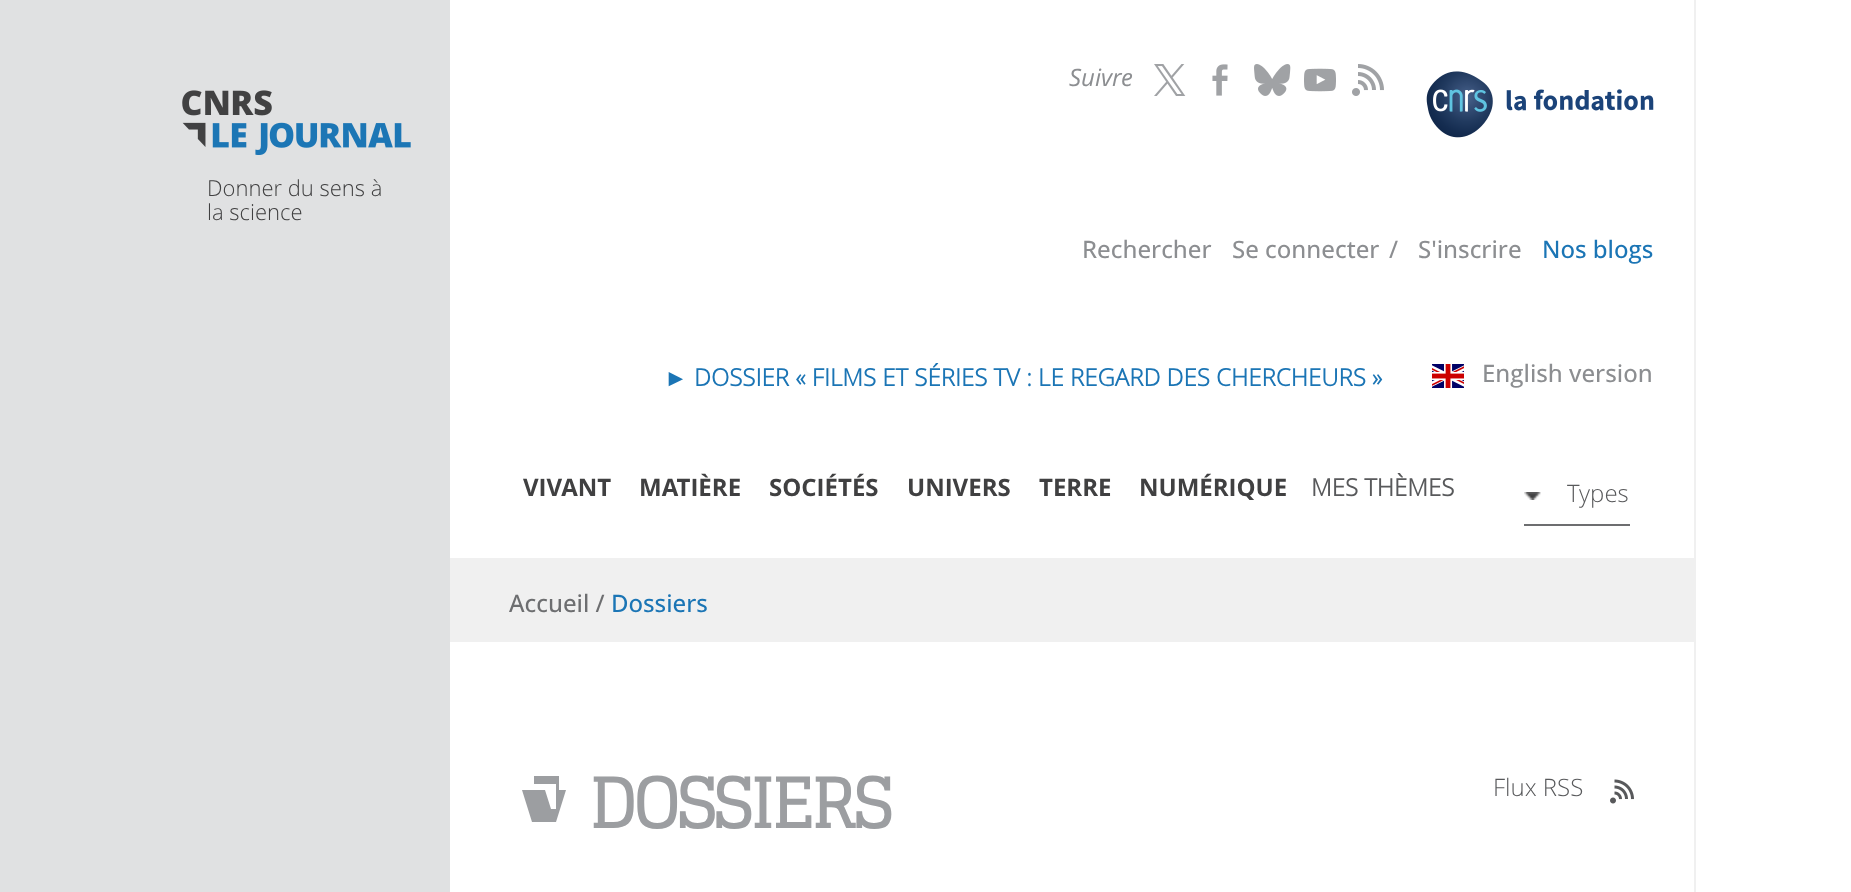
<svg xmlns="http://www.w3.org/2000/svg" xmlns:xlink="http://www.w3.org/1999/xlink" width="1851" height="892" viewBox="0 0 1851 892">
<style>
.cls-1{font:300 22px Open Sans;fill:#404041}
.cls-2{font:italic 24px Open Sans;fill:#8c8e91}
.cls-3{font:500 24px Open Sans;fill:#8c8e91}
.cls-4{font:500 24px Open Sans;fill:#1b75b5}
.cls-5{font:bold 24px Liberation Serif;fill:#1b75b5}
.cls-6{font:bold 24px Open Sans;fill:#1b75b5}
.cls-7{font:bold 24px 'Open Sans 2';fill:#404041}
.cls-8{font:bold 24px Open Sans;fill:#58595b}
.cls-9{font:300 24px Open Sans;fill:#58595b}
.cls-10{font:500 24px Open Sans;fill:#6d6e70}
.cls-11{font:bold 68px Glegoo;letter-spacing:-2.5px;fill:#9c9ea1}
</style>
<rect width="100%" height="100%" fill="#ffffff"/>
<rect fill="#e0e1e2" x="0" y="0" width="450" height="892"/>
<rect fill="#f0f0f0" x="1694" y="0" width="2" height="892"/>
<image xlink:href="image0.png" x="182" y="90" width="229" height="65"/>
<image xlink:href="image1.png" x="1154" y="64" width="32" height="32"/>
<image xlink:href="image2.png" x="1212" y="64" width="16" height="32"/>
<image xlink:href="image3.png" x="1254" y="64" width="37" height="32"/>
<image xlink:href="image4.png" x="1304" y="68" width="32" height="24"/>
<image xlink:href="image5.png" x="1352" y="64" width="32" height="32"/>
<image xlink:href="image6.png" x="1426" y="71" width="228" height="67"/>
<image xlink:href="image7.png" x="1432" y="364" width="32" height="24"/>
<image xlink:href="image8.png" x="1524" y="492" width="17" height="8"/>
<rect fill="#6d6e70" x="1524" y="524" width="106" height="2"/>
<rect fill="#f0f0f0" x="450" y="558" width="1244" height="84"/>
<path fill="#9c9ea1" d="M522 790L532 822H556L566 790H559V776H534V784H556V809H551L545 790Z"/>
<image xlink:href="image9.png" x="1610" y="779" width="24" height="25"/>
<text class="cls-1"><tspan x="207" y="196">Donner du sens à</tspan><tspan x="207" y="220">la science</tspan></text>
<text class="cls-2" x="1069" y="86">Suivre</text>
<text class="cls-3" x="1082" y="258">Rechercher</text>
<text class="cls-3" x="1232" y="258">Se connecter</text>
<text class="cls-3" x="1389" y="258">/</text>
<text class="cls-3" x="1418" y="258">S'inscrire</text>
<text class="cls-4" x="1542" y="258">Nos blogs</text>
<text class="cls-5" x="664" y="386">►</text>
<text class="cls-6" x="694" y="386">DOSSIER « FILMS ET SÉRIES TV : LE REGARD DES CHERCHEURS »</text>
<text class="cls-3" x="1482" y="382">English version</text>
<text class="cls-7" x="523" y="496">VIVANT</text>
<text class="cls-7" x="639" y="496">MATIÈRE</text>
<text class="cls-7" x="769" y="496">SOCIÉTÉS</text>
<text class="cls-7" x="907" y="496">UNIVERS</text>
<text class="cls-7" x="1039" y="496">TERRE</text>
<text class="cls-7" x="1139" y="496">NUMÉRIQUE</text>
<text class="cls-8" x="1311" y="496">MES THÈMES</text>
<text class="cls-9" x="1567" y="502">Types</text>
<text class="cls-10" x="509" y="612">Accueil /</text>
<text class="cls-4" x="611" y="612">Dossiers</text>
<text class="cls-11" x="589" y="828">DOSSIERS</text>
<text class="cls-9" x="1493" y="796">Flux RSS</text>
</svg>
